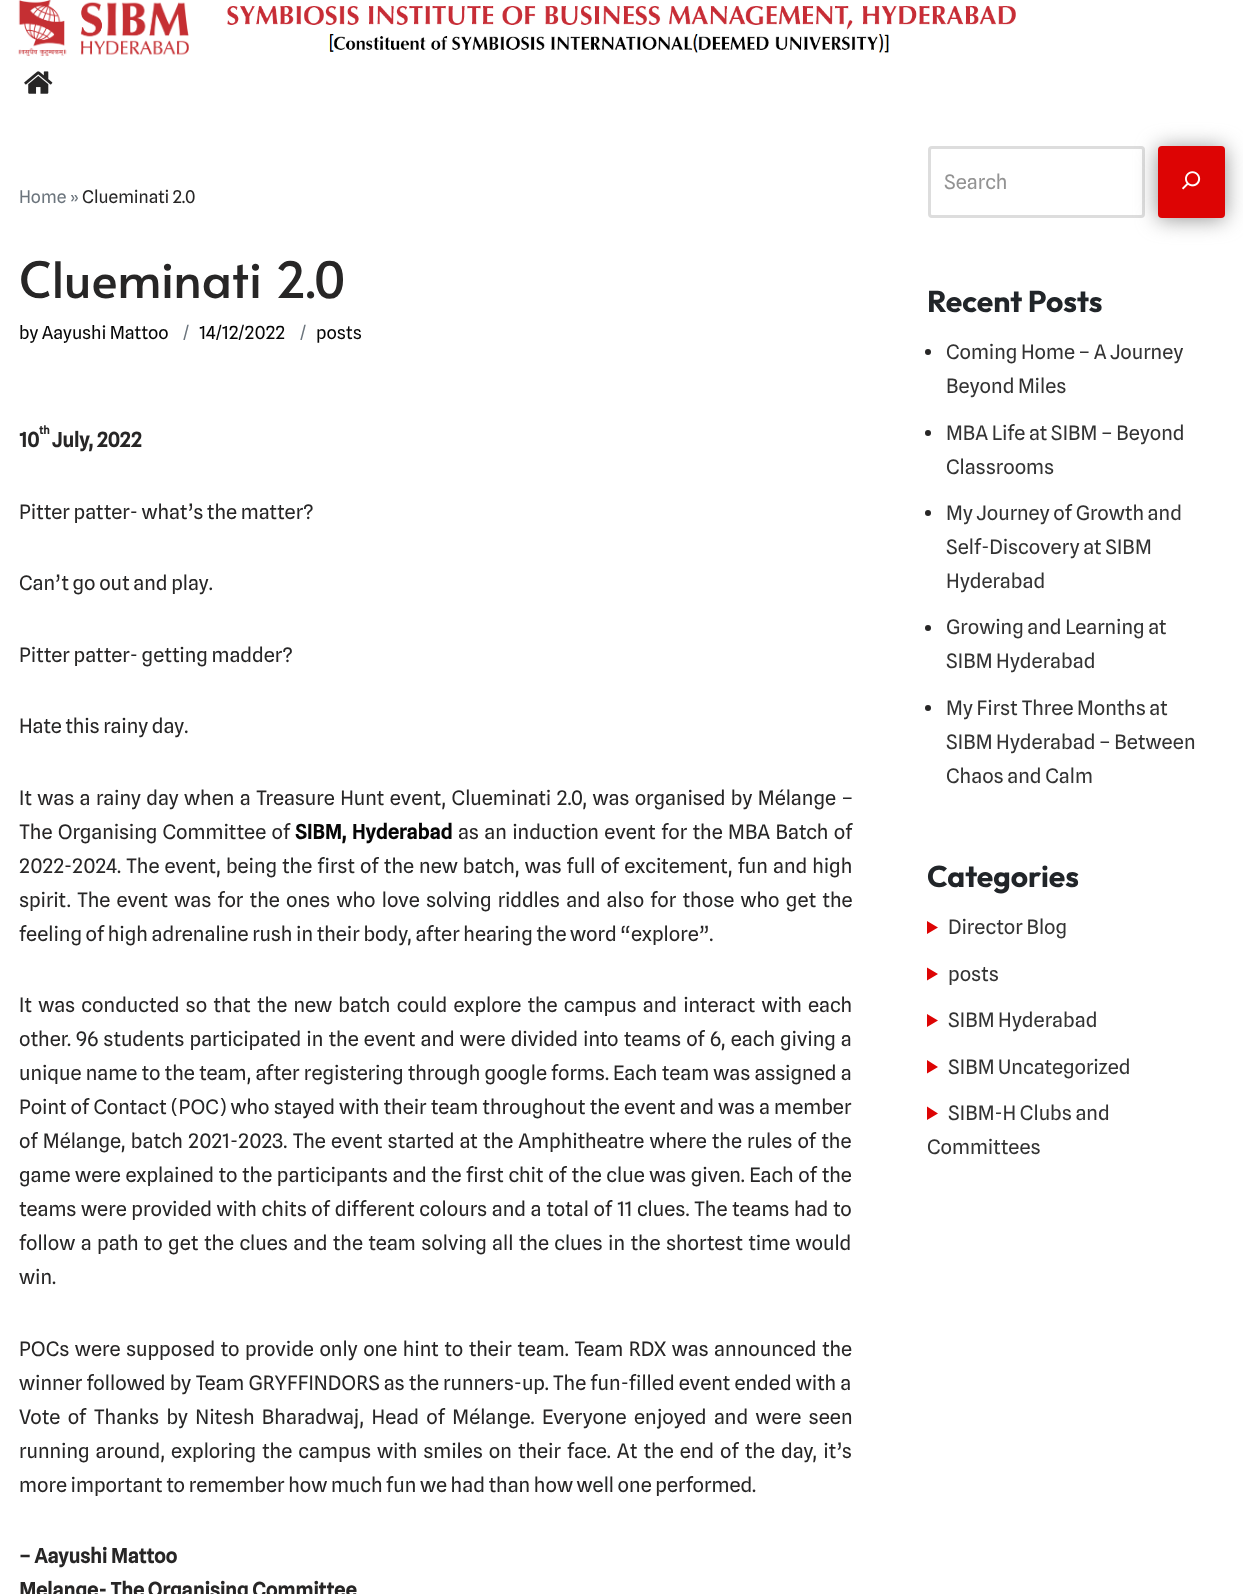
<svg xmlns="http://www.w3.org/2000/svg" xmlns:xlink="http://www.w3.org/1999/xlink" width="1243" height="1594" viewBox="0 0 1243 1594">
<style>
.cls-1{font:17.5px Spline Sans;fill:#6c757d}
.cls-2{font:17.5px Spline Sans;fill:#272626}
.cls-3{font:50px Alata;fill:#272626}
.cls-4{font:18px Spline Sans;fill:#060606}
.cls-5{font:18px Spline Sans;fill:#6c757d}
.cls-6{font:bold 11px Spline Sans;fill:#272626}
.cls-7{font:bold 20px Spline Sans;fill:#272626}
.cls-8{font:20px Spline Sans;fill:#272626}
.cls-9{font:bold 20px Spline Sans;fill:#060606}
.cls-10{font:20px Spline Sans;fill:#939393}
.cls-11{font:bold 30px Outfit;fill:#212529}
.cls-12{font:20px Spline Sans;fill:#333333}
</style>
<rect width="100%" height="100%" fill="#ffffff"/>
<image xlink:href="image0.png" x="18" y="0" width="171" height="56"/>
<image xlink:href="image1.png" x="227" y="6" width="789" height="47"/>
<image xlink:href="image2.png" x="24" y="71" width="29" height="23"/>
<rect fill="none" stroke="#dddddd" stroke-width="3" x="929.5" y="147.5" width="214" height="69" rx="2.5"/>
<rect fill="#919191" filter="blur(10.5px)" x="1158" y="148" width="67" height="71" rx="4"/>
<rect fill="#dd0404" x="1158" y="146" width="67" height="72" rx="4"/>
<image xlink:href="image3.png" x="1182" y="171" width="19" height="19"/>
<circle fill="#272626" cx="928" cy="352" r="3"/>
<circle fill="#272626" cx="928" cy="433" r="3"/>
<circle fill="#272626" cx="928" cy="513" r="3"/>
<circle fill="#272626" cx="928" cy="628" r="3"/>
<circle fill="#272626" cx="928" cy="708" r="3"/>
<path fill="#dd0404" d="M927 921L938 927.5L927 934Z"/>
<path fill="#dd0404" d="M927 967.5L938 974L927 980.5Z"/>
<path fill="#dd0404" d="M927 1014L938 1020.5L927 1027Z"/>
<path fill="#dd0404" d="M927 1060L938 1067L927 1073.5Z"/>
<path fill="#dd0404" d="M927 1106.5L938 1113.5L927 1120Z"/>
<text class="cls-1" x="19" y="203">Home »</text>
<text class="cls-2" x="82" y="203">Clueminati 2.0</text>
<text class="cls-3" x="19" y="298">Clueminati 2.0</text>
<text class="cls-4" x="19" y="339">by Aayushi Mattoo</text>
<text class="cls-5" x="183" y="339">/</text>
<text class="cls-4" x="199" y="339">14/12/2022</text>
<text class="cls-5" x="300" y="339">/</text>
<text class="cls-4" x="316" y="339">posts</text>
<text class="cls-6" x="39" y="434">th</text>
<text class="cls-7" x="19" y="447">10</text>
<text class="cls-7" x="52" y="447">July, 2022</text>
<text class="cls-8" x="19" y="519">Pitter patter- what’s the matter?</text>
<text class="cls-8" x="19" y="590">Can’t go out and play.</text>
<text class="cls-8" x="19" y="662">Pitter patter- getting madder?</text>
<text class="cls-8" x="19" y="733">Hate this rainy day.</text>
<text class="cls-8"><tspan x="19" y="805" word-spacing="1.75">It was a rainy day when a Treasure Hunt event, Clueminati 2.0, was organised by Mélange –</tspan><tspan x="19" y="839" word-spacing="1.75">The Organising Committee of</tspan></text>
<text class="cls-9" x="295" y="839" word-spacing="1.75">SIBM, Hyderabad</text>
<text class="cls-8" x="458" y="839" word-spacing="1.75">as an induction event for the MBA Batch of</text>
<text class="cls-8"><tspan x="19" y="873" word-spacing="1.4">2022-2024. The event, being the first of the new batch, was full of excitement, fun and high</tspan><tspan x="19" y="907" word-spacing="2.6">spirit. The event was for the ones who love solving riddles and also for those who get the</tspan><tspan x="19" y="941">feeling of high adrenaline rush in their body, after hearing the word “explore”.</tspan></text>
<text class="cls-8"><tspan x="19" y="1012" word-spacing="2.6">It was conducted so that the new batch could explore the campus and interact with each</tspan><tspan x="19" y="1046" word-spacing="1.5">other. 96 students participated in the event and were divided into teams of 6, each giving a</tspan><tspan x="19" y="1080" word-spacing="0.6">unique name to the team, after registering through google forms. Each team was assigned a</tspan><tspan x="19" y="1114" word-spacing="0.5">Point of Contact (POC) who stayed with their team throughout the event and was a member</tspan><tspan x="19" y="1148" word-spacing="1.5">of Mélange, batch 2021-2023. The event started at the Amphitheatre where the rules of the</tspan><tspan x="19" y="1182" word-spacing="1">game were explained to the participants and the first chit of the clue was given. Each of the</tspan><tspan x="19" y="1216" word-spacing="1">teams were provided with chits of different colours and a total of 11 clues. The teams had to</tspan><tspan x="19" y="1250" word-spacing="1.75">follow a path to get the clues and the team solving all the clues in the shortest time would</tspan><tspan x="19" y="1284">win.</tspan></text>
<text class="cls-8"><tspan x="19" y="1356" word-spacing="1.9">POCs were supposed to provide only one hint to their team. Team RDX was announced the</tspan><tspan x="19" y="1390" word-spacing="0.5">winner followed by Team GRYFFINDORS as the runners-up. The fun-filled event ended with a</tspan><tspan x="19" y="1424" word-spacing="3.75">Vote of Thanks by Nitesh Bharadwaj, Head of Mélange. Everyone enjoyed and were seen</tspan><tspan x="19" y="1458" word-spacing="2.4">running around, exploring the campus with smiles on their face. At the end of the day, it’s</tspan><tspan x="19" y="1492">more important to remember how much fun we had than how well one performed.</tspan></text>
<text class="cls-7"><tspan x="19" y="1563">– Aayushi Mattoo</tspan><tspan x="19" y="1597">Melange- The Organising Committee</tspan></text>
<text class="cls-10" x="944" y="189">Search</text>
<text class="cls-11" x="927" y="312">Recent Posts</text>
<text class="cls-12"><tspan x="946" y="359">Coming Home – A Journey</tspan><tspan x="946" y="393">Beyond Miles</tspan></text>
<text class="cls-12"><tspan x="946" y="440">MBA Life at SIBM – Beyond</tspan><tspan x="946" y="474">Classrooms</tspan></text>
<text class="cls-12"><tspan x="946" y="520">My Journey of Growth and</tspan><tspan x="946" y="554">Self-Discovery at SIBM</tspan><tspan x="946" y="588">Hyderabad</tspan></text>
<text class="cls-12"><tspan x="946" y="634">Growing and Learning at</tspan><tspan x="946" y="668">SIBM Hyderabad</tspan></text>
<text class="cls-12"><tspan x="946" y="715">My First Three Months at</tspan><tspan x="946" y="749">SIBM Hyderabad – Between</tspan><tspan x="946" y="783">Chaos and Calm</tspan></text>
<text class="cls-11" x="927" y="887">Categories</text>
<text class="cls-12" x="948" y="934">Director Blog</text>
<text class="cls-12" x="948" y="981">posts</text>
<text class="cls-12" x="948" y="1027">SIBM Hyderabad</text>
<text class="cls-12" x="948" y="1074">SIBM Uncategorized</text>
<text class="cls-12" x="948" y="1120">SIBM-H Clubs and</text>
<text class="cls-12" x="927" y="1154">Committees</text>
</svg>
